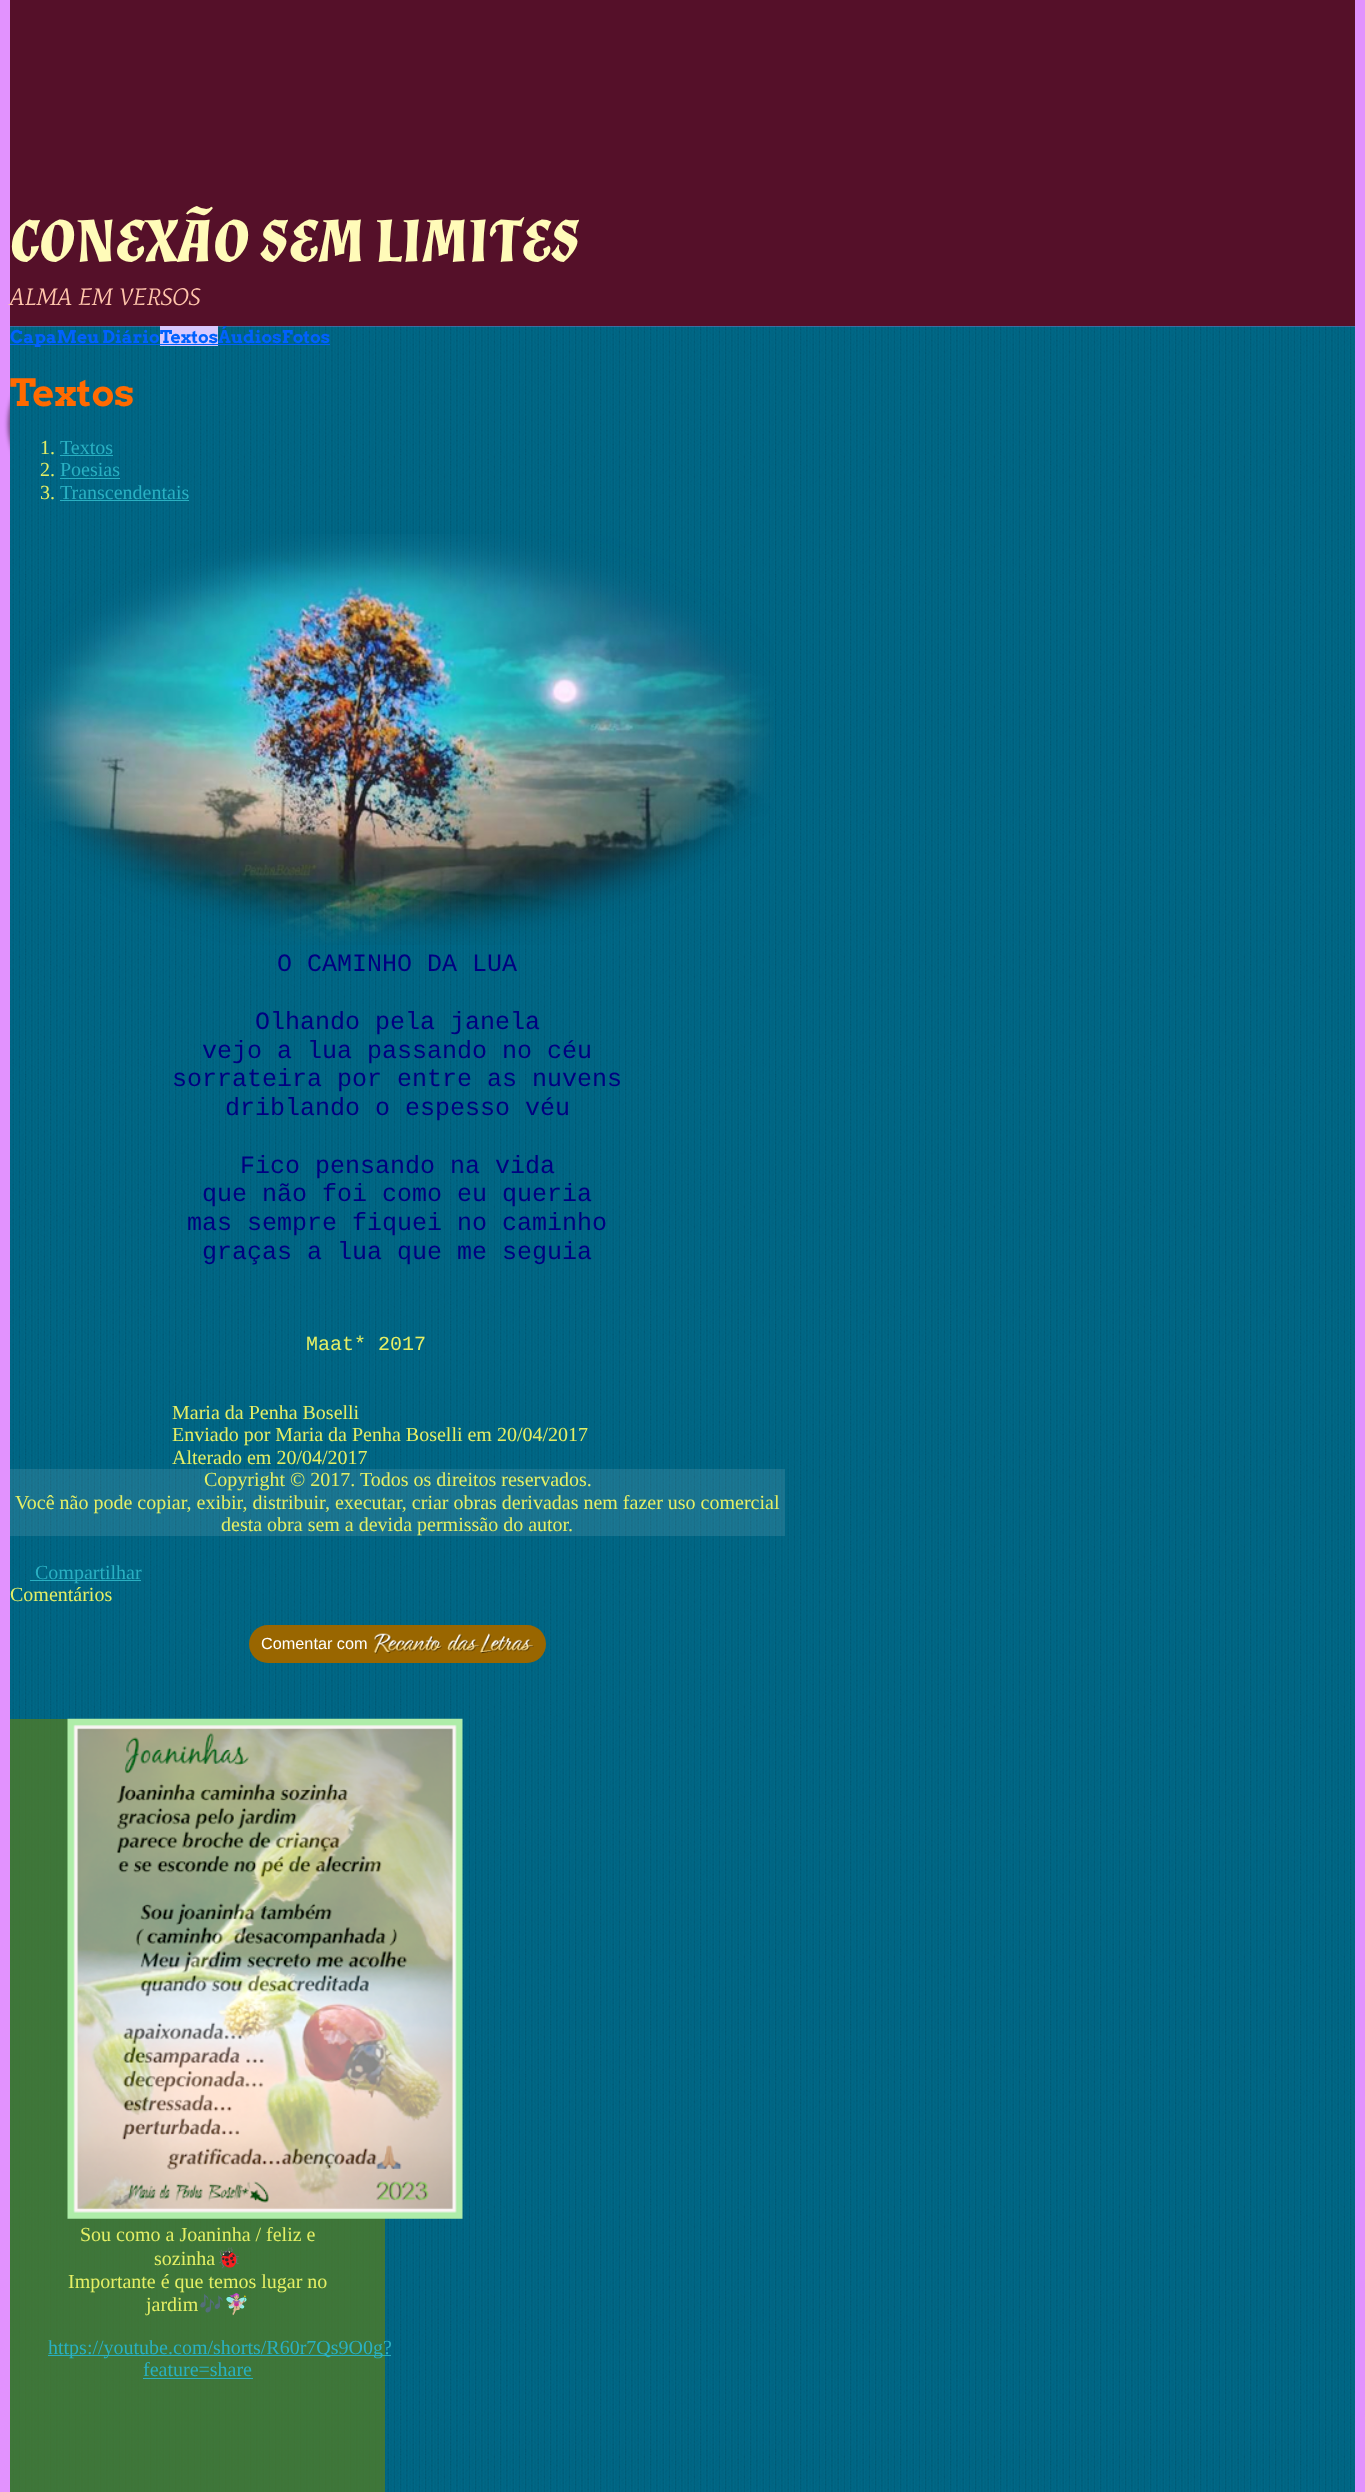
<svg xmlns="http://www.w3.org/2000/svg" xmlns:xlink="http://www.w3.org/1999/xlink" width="1365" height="2492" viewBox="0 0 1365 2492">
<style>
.cls-1{font:italic bold 62.5px Almendra;fill:#fffbb9}
.cls-2{font:italic 23.75px Mate;fill:#ffc5ab}
.cls-3{font:bold 17.5px Arvo;fill:#0061fe}
.cls-4{font:bold 37.5px Arvo;fill:#ff6a00}
.cls-5{font:20px Liberation Serif;fill:#e4ef65}
.cls-6{font:20px Liberation Serif;fill:#29b0c2}
.cls-7{font:25px Liberation Mono;fill:#000080}
.cls-8{font:20px Liberation Mono;fill:#e4ef65}
.cls-9{font:16.25px Liberation Sans;fill:#ffffff}
.cls-10{font:20px Noto Color Emoji;fill:#e4ef65}
</style>
<rect width="100%" height="100%" fill="#e292fe"/>
<rect fill="#551029" x="10" y="0" width="1345" height="326"/>
<rect fill="#000000" fill-opacity="0.5" filter="blur(2px)" x="8" y="350" width="147" height="148" rx="73.5"/>
<image xlink:href="image0.png" x="10" y="326" width="1345" height="2166"/>
<rect fill="#0061fe" x="10" y="344" width="150" height="1"/>
<rect fill="#d9c9fe" x="160" y="326" width="58" height="20"/>
<rect fill="#0061fe" x="160" y="344" width="170" height="1"/>
<rect fill="#29b0c2" x="60" y="455" width="53" height="1"/>
<rect fill="#29b0c2" x="60" y="478" width="60" height="1"/>
<rect fill="#29b0c2" x="60" y="500" width="129" height="1"/>
<image xlink:href="image1.png" x="17" y="534" width="757" height="411"/>
<rect fill="#ffffff" fill-opacity="0.1" x="10" y="1469" width="775" height="67"/>
<rect fill="#29b0c2" x="30" y="1580" width="111" height="1"/>
<rect fill="#996600" x="249" y="1625" width="297" height="38" rx="19"/>
<image xlink:href="image2.png" x="373" y="1633" width="161" height="21"/>
<rect fill="#4e7a27" fill-opacity="0.8" x="10" y="1719" width="375" height="773"/>
<image xlink:href="image3.png" x="67" y="1718" width="396" height="501"/>
<rect fill="#29b0c2" x="48" y="2355" width="343" height="1"/>
<rect fill="#29b0c2" x="143" y="2378" width="110" height="1"/>
<text class="cls-1" x="10" y="261">CONEXÃO SEM LIMITES</text>
<text class="cls-2" x="10" y="305">ALMA EM VERSOS</text>
<text class="cls-3" x="10" y="343">CapaMeu Diário</text>
<text class="cls-3" x="160" y="343">TextosÁudiosFotos</text>
<text class="cls-4" x="10" y="406">Textos</text>
<text class="cls-5" x="40" y="454">1.</text>
<text class="cls-6" x="60" y="454">Textos</text>
<text class="cls-5" x="40" y="476">2.</text>
<text class="cls-6" x="60" y="476">Poesias</text>
<text class="cls-5" x="40" y="499">3.</text>
<text class="cls-6" x="60" y="499">Transcendentais</text>
<text class="cls-7" x="277" y="971">O CAMINHO DA LUA</text>
<text class="cls-7" x="255" y="1029">Olhando pela janela</text>
<text class="cls-7" x="202" y="1058">vejo a lua passando no céu</text>
<text class="cls-7" x="172" y="1086">sorrateira por entre as nuvens</text>
<text class="cls-7" x="225" y="1115">driblando o espesso véu</text>
<text class="cls-7" x="240" y="1173">Fico pensando na vida</text>
<text class="cls-7" x="202" y="1201">que não foi como eu queria</text>
<text class="cls-7" x="187" y="1230">mas sempre fiquei no caminho</text>
<text class="cls-7" x="202" y="1259">graças a lua que me seguia</text>
<text class="cls-8" x="306" y="1350">Maat* 2017</text>
<text class="cls-5"><tspan x="172" y="1419">Maria da Penha Boselli</tspan><tspan x="172" y="1441">Enviado por Maria da Penha Boselli em 20/04/2017</tspan><tspan x="172" y="1464">Alterado em 20/04/2017</tspan></text>
<text class="cls-5" x="204" y="1486">Copyright © 2017. Todos os direitos reservados.</text>
<text class="cls-5" x="15" y="1509">Você não pode copiar, exibir, distribuir, executar, criar obras derivadas nem fazer uso comercial</text>
<text class="cls-5" x="221" y="1531">desta obra sem a devida permissão do autor.</text>
<text class="cls-6" x="35" y="1579">Compartilhar</text>
<text class="cls-5" x="10" y="1601">Comentários</text>
<text class="cls-9" x="261" y="1649">Comentar com</text>
<text class="cls-5" x="80" y="2241">Sou como a Joaninha / feliz e</text>
<text class="cls-5" x="154" y="2265">sozinha</text>
<text class="cls-10" x="216" y="2265">🐞</text>
<text class="cls-5" x="68" y="2288">Importante é que temos lugar no</text>
<text class="cls-5" x="146" y="2311">jardim</text>
<text class="cls-10" x="199" y="2311">🎶🧚🏼‍♀️</text>
<text class="cls-6" x="48" y="2354">https://youtube.com/shorts/R60r7Qs9O0g?</text>
<text class="cls-6" x="143" y="2376">feature=share</text>
</svg>
